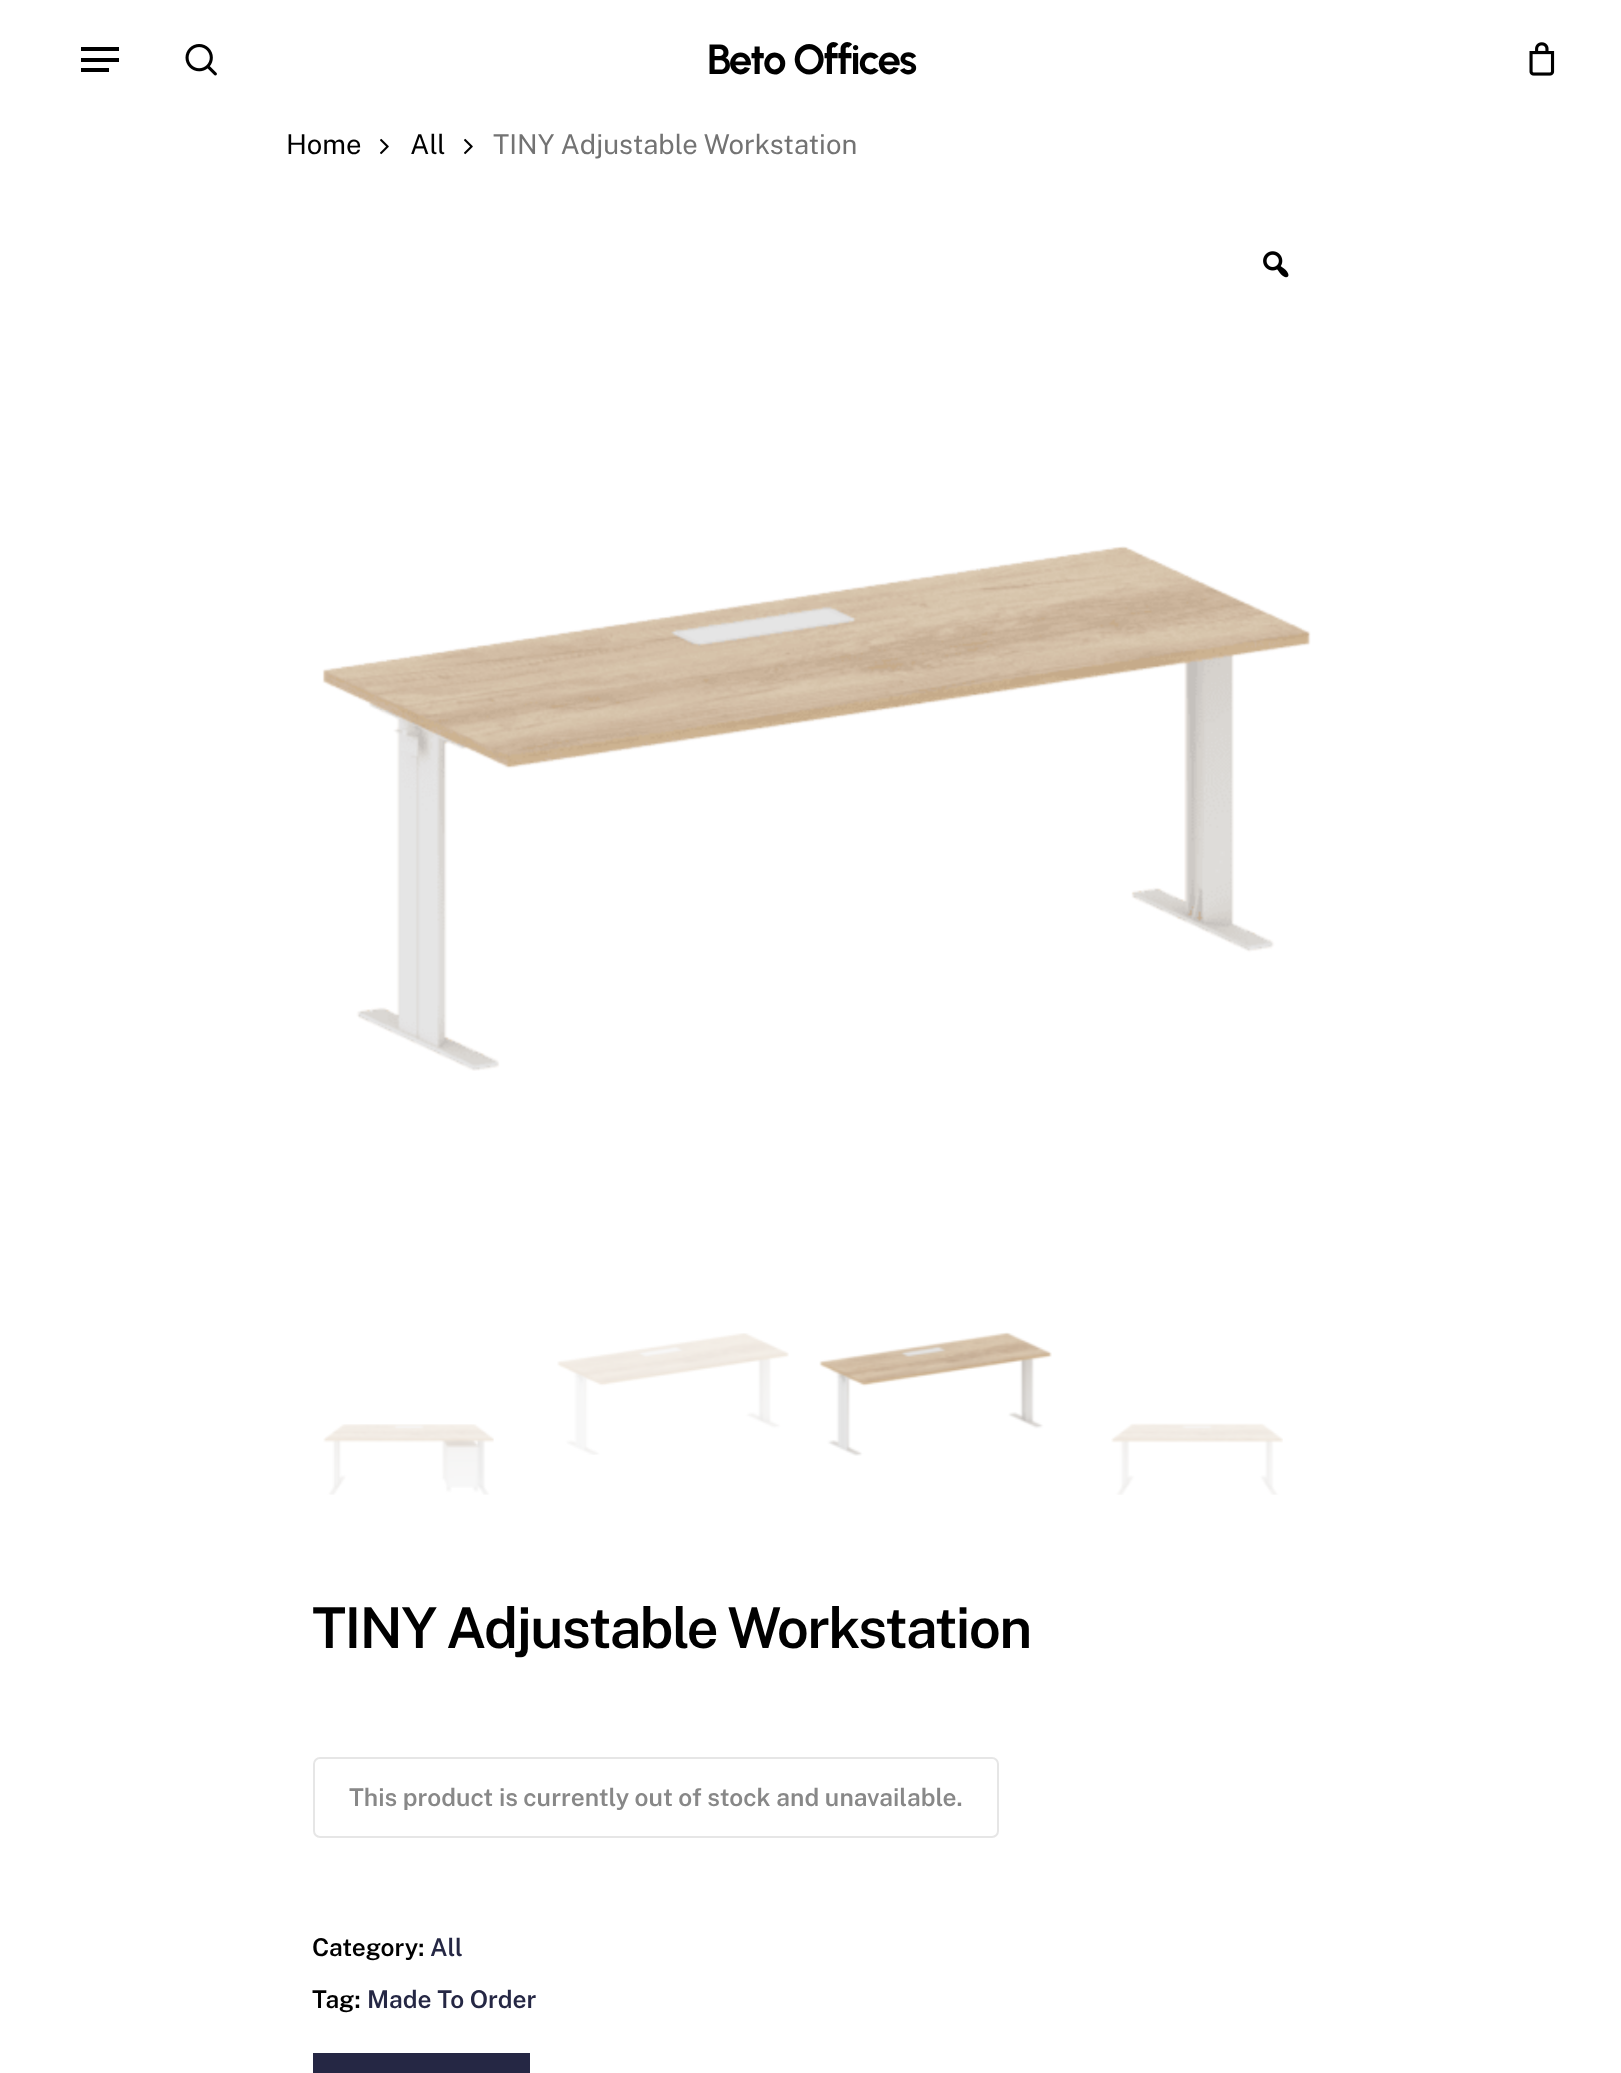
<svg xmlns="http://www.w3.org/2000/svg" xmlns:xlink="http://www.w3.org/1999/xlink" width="1621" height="2073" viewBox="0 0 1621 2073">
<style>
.cls-1{font:bold 42px Urbanist;letter-spacing:-1.75px;fill:#000000}
.cls-2{font:27.4px Public Sans;fill:#000000}
.cls-3{font:27.4px Public Sans;fill:#737373}
.cls-4{font:600 56.4px Public Sans;letter-spacing:-1.7px;fill:#000000}
.cls-5{font:600 24.5px Public Sans;fill:#888888}
.cls-6{font:600 24.5px Public Sans;fill:#000000}
.cls-7{font:600 24.5px Public Sans;fill:#252744}
</style>
<rect width="100%" height="100%" fill="#ffffff"/>
<rect fill="#000000" x="81" y="47" width="38" height="4"/>
<rect fill="#000000" x="81" y="68" width="28" height="4"/>
<rect fill="#000000" x="81" y="58" width="38" height="4"/>
<image xlink:href="image0.png" x="185" y="44" width="32" height="32"/>
<image xlink:href="image1.png" x="1529" y="42" width="26" height="34"/>
<image xlink:href="image2.png" x="380" y="138" width="9" height="17"/>
<image xlink:href="image2.png" x="464" y="138" width="9" height="17"/>
<image xlink:href="image3.png" x="1263" y="251" width="26" height="27"/>
<image xlink:href="image4.png" x="322" y="546" width="989" height="525"/>
<image xlink:href="image5.png" x="323" y="1424" width="171" height="71"/>
<image xlink:href="image6.png" x="557" y="1333" width="232" height="122"/>
<image xlink:href="image7.png" x="819" y="1332" width="233" height="124"/>
<image xlink:href="image8.png" x="1111" y="1423" width="172" height="72"/>
<rect fill="none" stroke="#e6e6e6" stroke-width="2" x="314" y="1758" width="684" height="79" rx="6"/>
<rect fill="#252744" x="313" y="2053" width="217" height="20"/>
<text class="cls-1" x="707" y="74">Beto Offices</text>
<text class="cls-2" x="286" y="154">Home</text>
<text class="cls-2" x="410" y="154">All</text>
<text class="cls-3" x="493" y="154">TINY Adjustable Workstation</text>
<text class="cls-4" x="312" y="1648">TINY Adjustable Workstation</text>
<text class="cls-5" x="349" y="1806">This product is currently out of stock and unavailable.</text>
<text class="cls-6" x="312" y="1956">Category:</text>
<text class="cls-7" x="430" y="1956">All</text>
<text class="cls-6" x="312" y="2008">Tag:</text>
<text class="cls-7" x="367" y="2008">Made To Order</text>
</svg>
